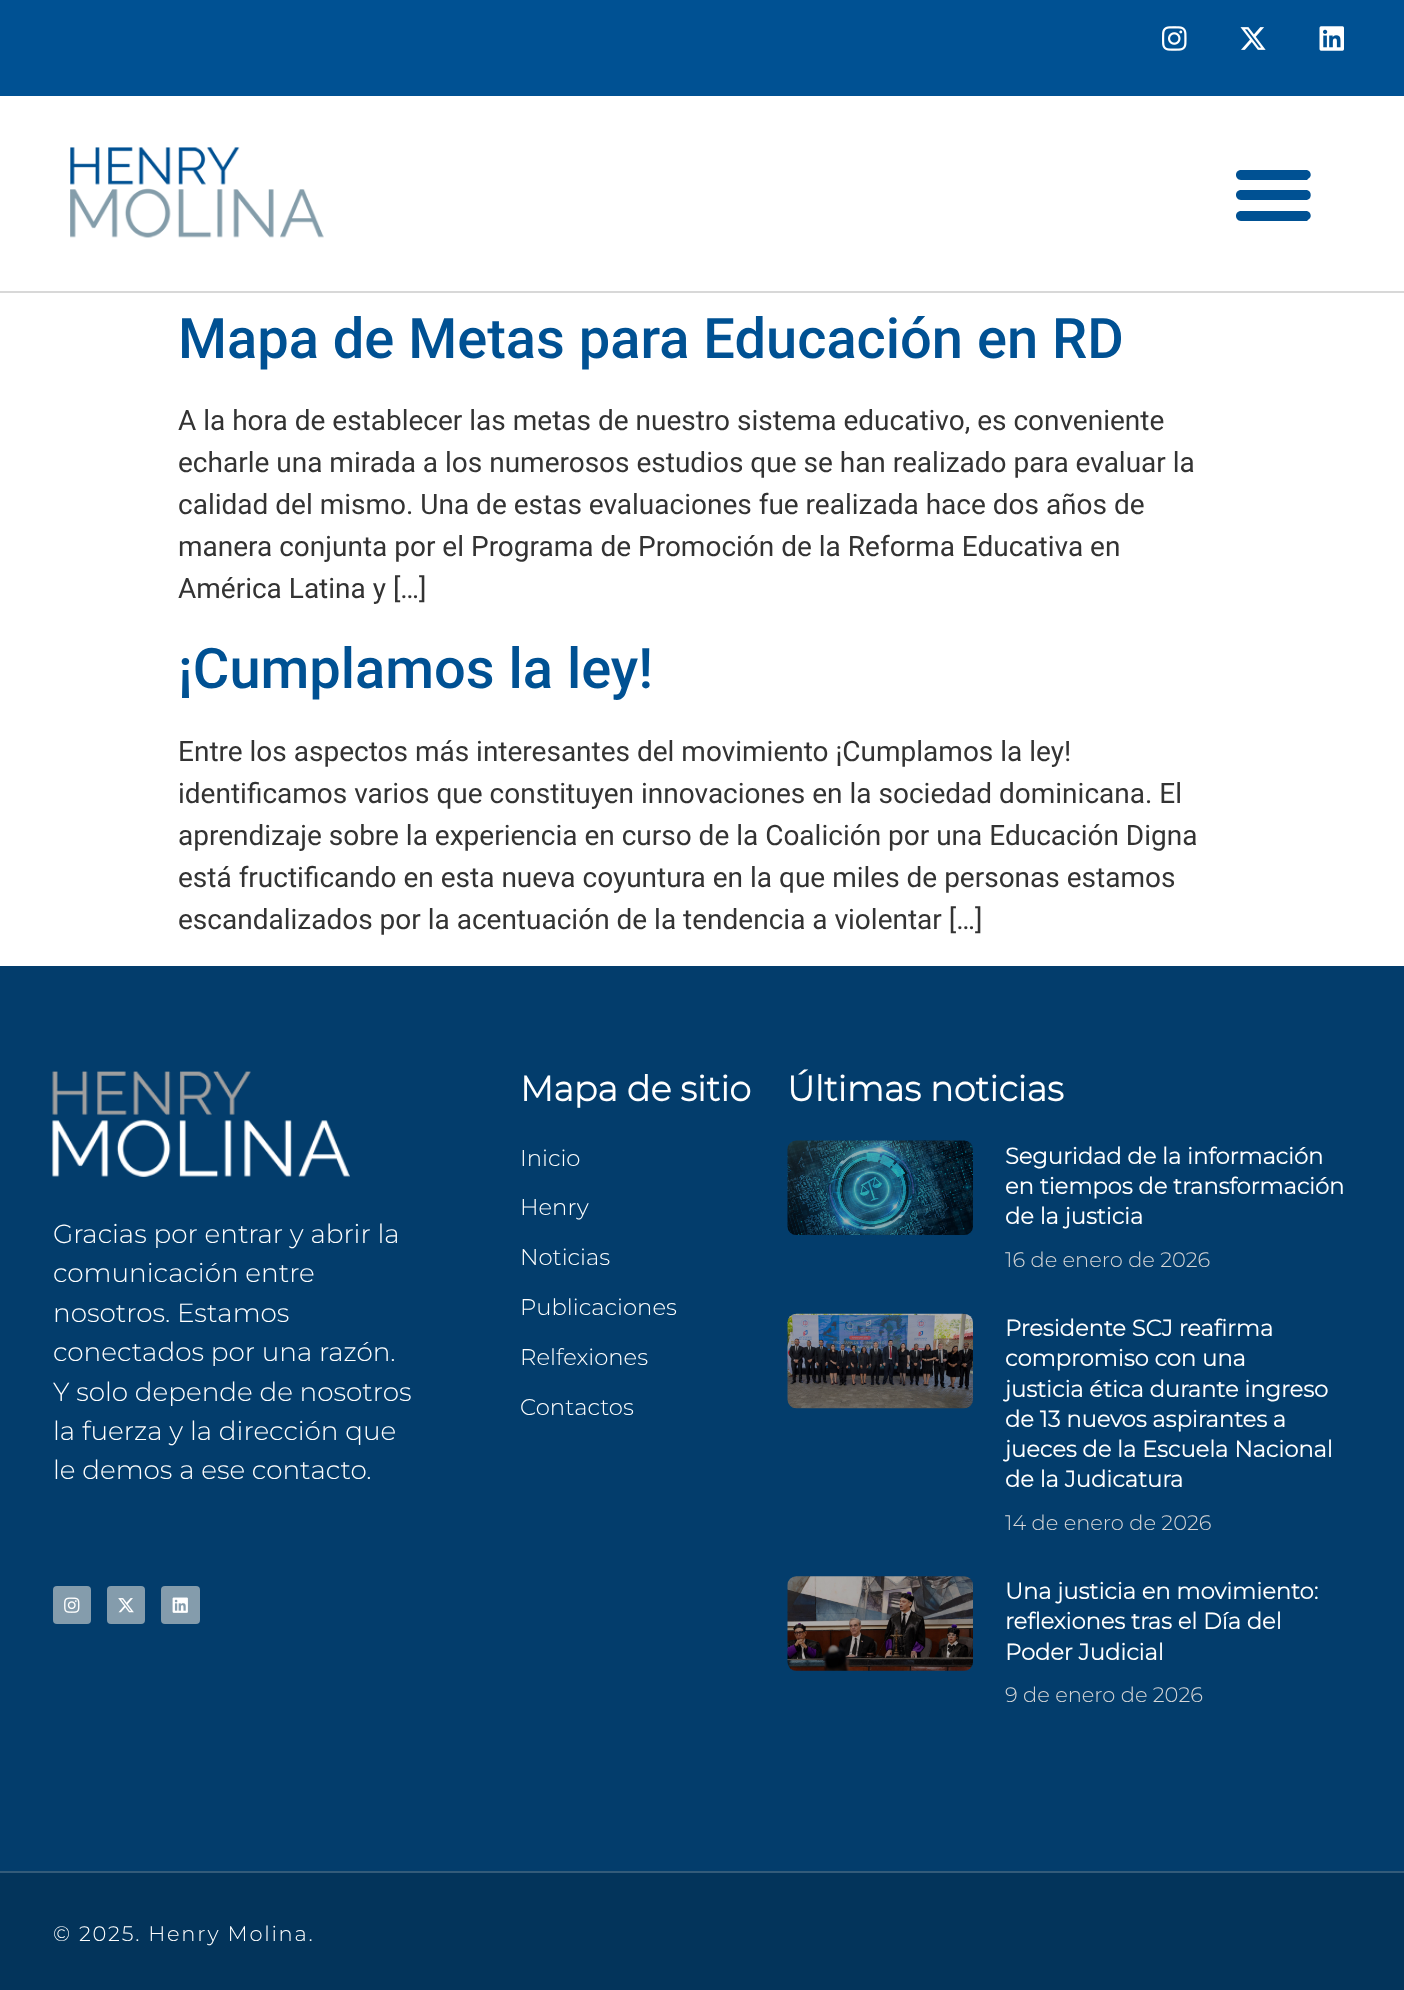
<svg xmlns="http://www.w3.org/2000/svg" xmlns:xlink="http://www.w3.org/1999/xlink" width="1404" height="1990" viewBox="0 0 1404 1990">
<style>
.cls-1{font:500 56px Roboto;fill:#005193}
.cls-2{font:28px Roboto;fill:#333333}
.cls-3{font:300 26.25px Montserrat;fill:#ffffff}
.cls-4{font:bold 35px Montserrat;fill:#ffffff}
.cls-5{font:300 22.75px Montserrat;fill:#ffffff}
.cls-6{font:bold 22.7px Montserrat;fill:#ffffff}
.cls-7{font:300 21px Montserrat;fill:#d6d6d7}
.cls-8{font:300 21px Montserrat;letter-spacing:1.75px;fill:#ffffff}
</style>
<rect width="100%" height="100%" fill="#ffffff"/>
<rect fill="#005193" x="0" y="0" width="1404" height="96"/>
<image xlink:href="image0.png" x="1162" y="26" width="25" height="25"/>
<image xlink:href="image1.png" x="1240" y="27" width="26" height="23"/>
<image xlink:href="image2.png" x="1319" y="26" width="25" height="25"/>
<rect fill="#d8d8d8" x="0" y="291" width="1404" height="2"/>
<image xlink:href="image3.png" x="70" y="147" width="254" height="91"/>
<path fill="#005193" d="M1241 180H1307L1309 178C1312 176 1311 171 1307 170H1240C1234 171 1235 180 1241 180ZM1241 200H1307L1309 199C1312 196 1311 191 1307 190H1240C1234 191 1235 200 1241 200ZM1241 221H1307L1309 219C1312 217 1311 212 1307 211H1240C1234 212 1235 221 1241 221Z"/>
<rect fill="#033d6c" x="0" y="966" width="1404" height="905"/>
<image xlink:href="image4.png" x="52" y="1071" width="298" height="106"/>
<rect fill="#849cac" x="53" y="1586" width="38" height="38" rx="4"/>
<image xlink:href="image5.png" x="64" y="1597" width="16" height="16"/>
<rect fill="#849cac" x="107" y="1586" width="38" height="38" rx="4"/>
<image xlink:href="image6.png" x="118" y="1598" width="16" height="15"/>
<rect fill="#849cac" x="161" y="1586" width="39" height="38" rx="4"/>
<image xlink:href="image7.png" x="172" y="1597" width="16" height="16"/>
<image xlink:href="image8.png" x="787" y="1140" width="186" height="95"/>
<image xlink:href="image9.png" x="787" y="1313" width="186" height="96"/>
<image xlink:href="image10.png" x="787" y="1576" width="186" height="95"/>
<rect fill="#03345b" x="0" y="1873" width="1404" height="117"/>
<rect fill="#335b7a" x="0" y="1871" width="1404" height="2"/>
<text class="cls-1" x="178" y="358">Mapa de Metas para Educación en RD</text>
<text class="cls-2"><tspan x="178" y="430">A la hora de establecer las metas de nuestro sistema educativo, es conveniente</tspan><tspan x="178" y="472">echarle una mirada a los numerosos estudios que se han realizado para evaluar la</tspan><tspan x="178" y="514">calidad del mismo. Una de estas evaluaciones fue realizada hace dos años de</tspan><tspan x="178" y="556">manera conjunta por el Programa de Promoción de la Reforma Educativa en</tspan><tspan x="178" y="598">América Latina y […]</tspan></text>
<text class="cls-1" x="178" y="688">¡Cumplamos la ley!</text>
<text class="cls-2"><tspan x="178" y="761">Entre los aspectos más interesantes del movimiento ¡Cumplamos la ley!</tspan><tspan x="178" y="803">identificamos varios que constituyen innovaciones en la sociedad dominicana. El</tspan><tspan x="178" y="845">aprendizaje sobre la experiencia en curso de la Coalición por una Educación Digna</tspan><tspan x="178" y="887">está fructificando en esta nueva coyuntura en la que miles de personas estamos</tspan><tspan x="178" y="929">escandalizados por la acentuación de la tendencia a violentar […]</tspan></text>
<text class="cls-3"><tspan x="53" y="1243">Gracias por entrar y abrir la</tspan><tspan x="53" y="1282">comunicación entre</tspan><tspan x="53" y="1322">nosotros. Estamos</tspan><tspan x="53" y="1361">conectados por una razón.</tspan><tspan x="53" y="1401">Y solo depende de nosotros</tspan><tspan x="53" y="1440">la fuerza y la dirección que</tspan><tspan x="53" y="1479">le demos a ese contacto.</tspan></text>
<text class="cls-4" x="520" y="1101">Mapa de sitio</text>
<text class="cls-5" x="520" y="1166">Inicio</text>
<text class="cls-5" x="520" y="1215">Henry</text>
<text class="cls-5" x="520" y="1265">Noticias</text>
<text class="cls-5" x="520" y="1315">Publicaciones</text>
<text class="cls-5" x="520" y="1365">Relfexiones</text>
<text class="cls-5" x="520" y="1415">Contactos</text>
<text class="cls-4" x="787" y="1101">Últimas noticias</text>
<text class="cls-6"><tspan x="1005" y="1164">Seguridad de la información</tspan><tspan x="1005" y="1194">en tiempos de transformación</tspan><tspan x="1005" y="1224">de la justicia</tspan></text>
<text class="cls-7" x="1005" y="1267">16 de enero de 2026</text>
<text class="cls-6"><tspan x="1005" y="1336">Presidente SCJ reafirma</tspan><tspan x="1005" y="1366">compromiso con una</tspan><tspan x="1005" y="1397">justicia ética durante ingreso</tspan><tspan x="1005" y="1427">de 13 nuevos aspirantes a</tspan><tspan x="1005" y="1457">jueces de la Escuela Nacional</tspan><tspan x="1005" y="1487">de la Judicatura</tspan></text>
<text class="cls-7" x="1005" y="1530">14 de enero de 2026</text>
<text class="cls-6"><tspan x="1005" y="1599">Una justicia en movimiento:</tspan><tspan x="1005" y="1629">reflexiones tras el Día del</tspan><tspan x="1005" y="1660">Poder Judicial</tspan></text>
<text class="cls-7" x="1005" y="1702">9 de enero de 2026</text>
<text class="cls-8" x="53" y="1941">© 2025. Henry Molina.</text>
</svg>
